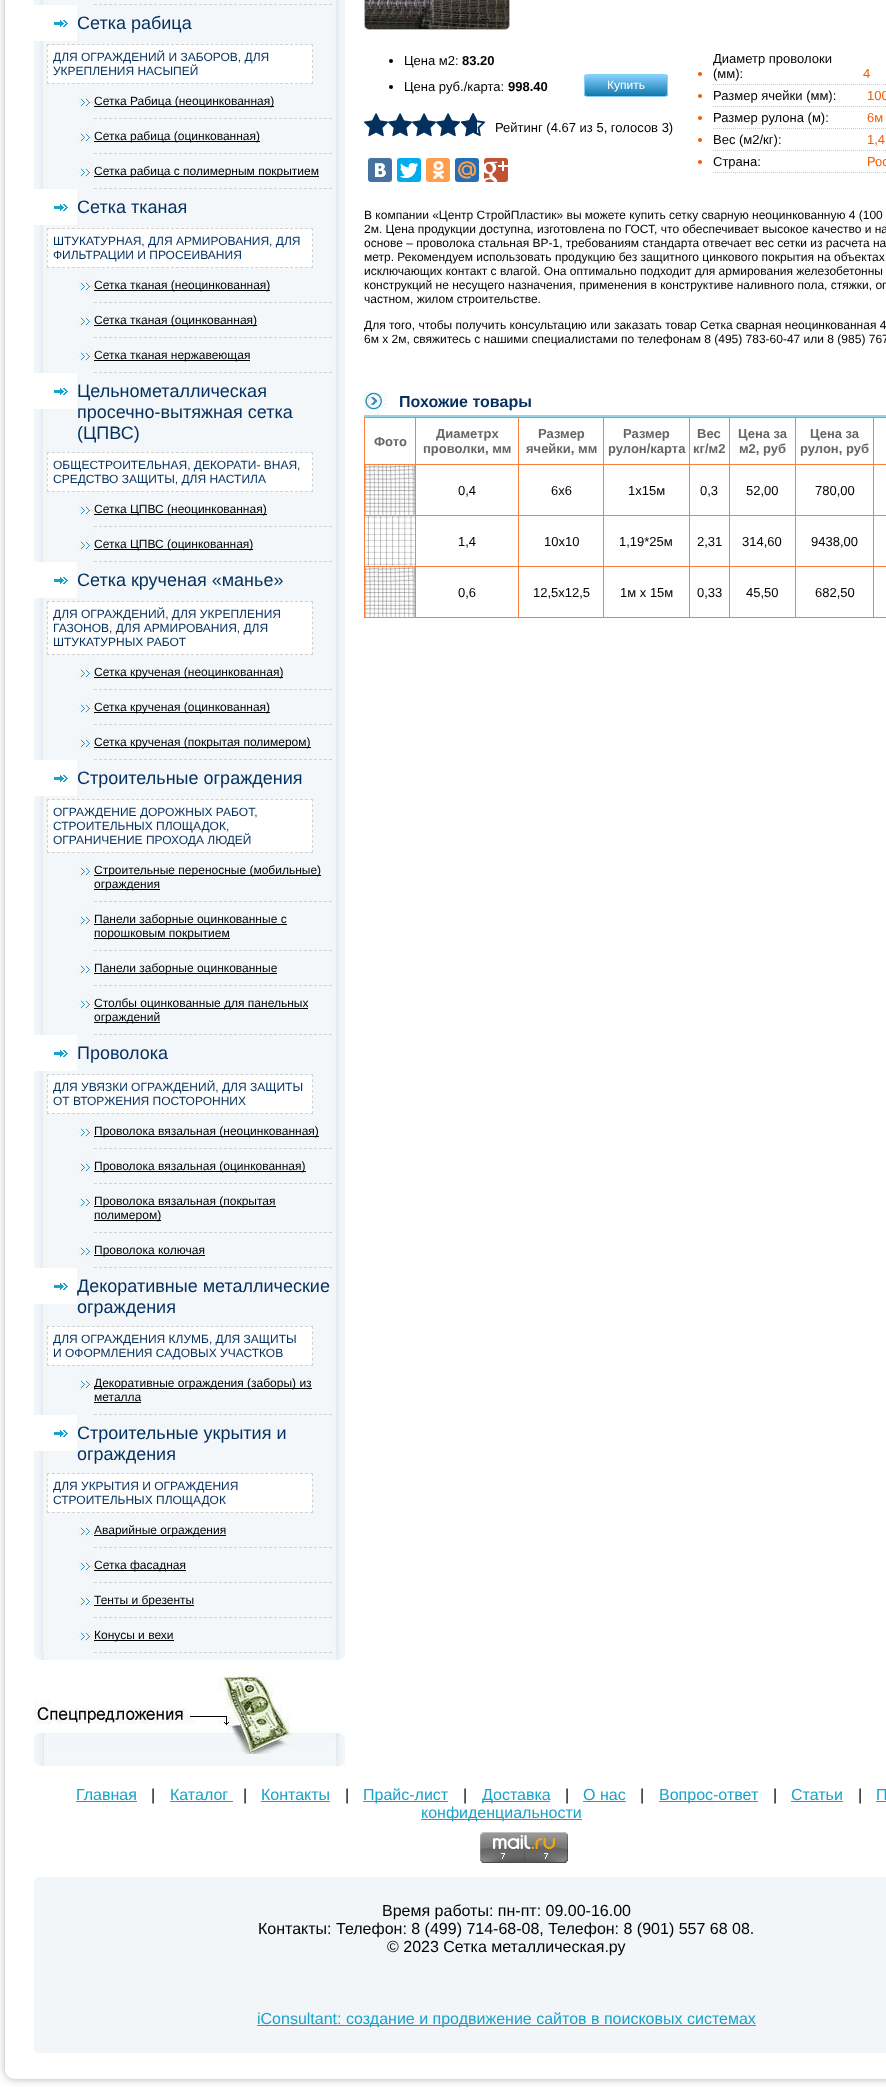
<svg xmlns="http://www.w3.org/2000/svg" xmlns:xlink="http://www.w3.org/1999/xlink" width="886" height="2087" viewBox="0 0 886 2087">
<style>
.cls-1{font:18px Liberation Sans;fill:#03305f}
.cls-2{font:12px Liberation Sans;fill:#03305f}
.cls-3{font:12px Liberation Sans;fill:#000000}
.cls-4{font:13px Liberation Sans;fill:#000000}
.cls-5{font:bold 13px Liberation Sans;fill:#000000}
.cls-6{font:12px Liberation Sans;fill:#ffffff}
.cls-7{font:13px Liberation Sans;fill:#f55c00}
.cls-8{font:bold 16px Liberation Sans;fill:#03305f}
.cls-9{font:bold 13px Liberation Sans;fill:#666666}
.cls-10{font:16px Liberation Sans;fill:#19a3cb}
.cls-11{font:16px Liberation Sans;fill:#000000}
</style>
<defs>
<clipPath id="clip1"><rect x="584" y="74" width="84" height="23" rx="3"/></clipPath>
<linearGradient id="g1" gradientUnits="userSpaceOnUse" x1="626" y1="75" x2="626" y2="96"><stop offset="0" stop-color="#87d1ff"/><stop offset="1" stop-color="#1078ad"/></linearGradient>
</defs>
<rect width="100%" height="100%" fill="#ffffff"/>
<image xlink:href="image0.png" x="0" y="0" width="886" height="2066"/>
<image xlink:href="image1.png" x="34" y="0" width="311" height="1653"/>
<path fill="none" stroke="#d1d1d1" stroke-dasharray="3 2" d="M94 4.5H332"/>
<image xlink:href="image2.png" x="34" y="5" width="43" height="36"/>
<rect fill="#ffffff" x="47" y="44" width="266" height="40"/>
<path fill="none" stroke="#d1d1d1" stroke-dasharray="3 1.96" d="M47 44.5H313"/>
<path fill="none" stroke="#d1d1d1" stroke-dasharray="3 2.29" d="M312.5 44V84"/>
<path fill="none" stroke="#d1d1d1" stroke-dasharray="3 1.96" d="M47 83.5H313"/>
<path fill="none" stroke="#d1d1d1" stroke-dasharray="3 2.29" d="M47.5 44V84"/>
<image xlink:href="image3.png" x="78" y="92" width="16" height="16"/>
<path fill="none" stroke="#d1d1d1" stroke-dasharray="3 2" d="M94 118.5H332"/>
<rect fill="#000000" x="94" y="106" width="180" height="1"/>
<image xlink:href="image3.png" x="78" y="127" width="16" height="16"/>
<path fill="none" stroke="#d1d1d1" stroke-dasharray="3 2" d="M94 153.5H332"/>
<rect fill="#000000" x="94" y="141" width="166" height="1"/>
<image xlink:href="image3.png" x="78" y="162" width="16" height="16"/>
<path fill="none" stroke="#d1d1d1" stroke-dasharray="3 2" d="M94 188.5H332"/>
<rect fill="#000000" x="94" y="176" width="225" height="1"/>
<image xlink:href="image2.png" x="34" y="189" width="43" height="36"/>
<rect fill="#ffffff" x="47" y="228" width="266" height="40"/>
<path fill="none" stroke="#d1d1d1" stroke-dasharray="3 1.96" d="M47 228.5H313"/>
<path fill="none" stroke="#d1d1d1" stroke-dasharray="3 2.29" d="M312.5 228V268"/>
<path fill="none" stroke="#d1d1d1" stroke-dasharray="3 1.96" d="M47 267.5H313"/>
<path fill="none" stroke="#d1d1d1" stroke-dasharray="3 2.29" d="M47.5 228V268"/>
<image xlink:href="image3.png" x="78" y="276" width="16" height="16"/>
<path fill="none" stroke="#d1d1d1" stroke-dasharray="3 2" d="M94 302.5H332"/>
<rect fill="#000000" x="94" y="290" width="176" height="1"/>
<image xlink:href="image3.png" x="78" y="311" width="16" height="16"/>
<path fill="none" stroke="#d1d1d1" stroke-dasharray="3 2" d="M94 337.5H332"/>
<rect fill="#000000" x="94" y="325" width="163" height="1"/>
<image xlink:href="image3.png" x="78" y="346" width="16" height="16"/>
<path fill="none" stroke="#d1d1d1" stroke-dasharray="3 2" d="M94 372.5H332"/>
<rect fill="#000000" x="94" y="360" width="156" height="1"/>
<image xlink:href="image2.png" x="34" y="373" width="43" height="36"/>
<rect fill="#ffffff" x="47" y="452" width="266" height="40"/>
<path fill="none" stroke="#d1d1d1" stroke-dasharray="3 1.96" d="M47 452.5H313"/>
<path fill="none" stroke="#d1d1d1" stroke-dasharray="3 2.29" d="M312.5 452V492"/>
<path fill="none" stroke="#d1d1d1" stroke-dasharray="3 1.96" d="M47 491.5H313"/>
<path fill="none" stroke="#d1d1d1" stroke-dasharray="3 2.29" d="M47.5 452V492"/>
<image xlink:href="image3.png" x="78" y="500" width="16" height="16"/>
<path fill="none" stroke="#d1d1d1" stroke-dasharray="3 2" d="M94 526.5H332"/>
<rect fill="#000000" x="94" y="514" width="173" height="1"/>
<image xlink:href="image3.png" x="78" y="535" width="16" height="16"/>
<path fill="none" stroke="#d1d1d1" stroke-dasharray="3 2" d="M94 561.5H332"/>
<rect fill="#000000" x="94" y="549" width="159" height="1"/>
<image xlink:href="image2.png" x="34" y="562" width="43" height="36"/>
<rect fill="#ffffff" x="47" y="601" width="266" height="54"/>
<path fill="none" stroke="#d1d1d1" stroke-dasharray="3 1.96" d="M47 601.5H313"/>
<path fill="none" stroke="#d1d1d1" stroke-dasharray="3 2.1" d="M312.5 601V655"/>
<path fill="none" stroke="#d1d1d1" stroke-dasharray="3 1.96" d="M47 654.5H313"/>
<path fill="none" stroke="#d1d1d1" stroke-dasharray="3 2.1" d="M47.5 601V655"/>
<image xlink:href="image3.png" x="78" y="663" width="16" height="16"/>
<path fill="none" stroke="#d1d1d1" stroke-dasharray="3 2" d="M94 689.5H332"/>
<rect fill="#000000" x="94" y="677" width="189" height="1"/>
<image xlink:href="image3.png" x="78" y="698" width="16" height="16"/>
<path fill="none" stroke="#d1d1d1" stroke-dasharray="3 2" d="M94 724.5H332"/>
<rect fill="#000000" x="94" y="712" width="176" height="1"/>
<image xlink:href="image3.png" x="78" y="733" width="16" height="16"/>
<path fill="none" stroke="#d1d1d1" stroke-dasharray="3 2" d="M94 759.5H332"/>
<rect fill="#000000" x="94" y="747" width="217" height="1"/>
<image xlink:href="image2.png" x="34" y="760" width="43" height="36"/>
<rect fill="#ffffff" x="47" y="799" width="266" height="54"/>
<path fill="none" stroke="#d1d1d1" stroke-dasharray="3 1.96" d="M47 799.5H313"/>
<path fill="none" stroke="#d1d1d1" stroke-dasharray="3 2.1" d="M312.5 799V853"/>
<path fill="none" stroke="#d1d1d1" stroke-dasharray="3 1.96" d="M47 852.5H313"/>
<path fill="none" stroke="#d1d1d1" stroke-dasharray="3 2.1" d="M47.5 799V853"/>
<image xlink:href="image3.png" x="78" y="861" width="16" height="16"/>
<path fill="none" stroke="#d1d1d1" stroke-dasharray="3 2" d="M94 901.5H332"/>
<rect fill="#000000" x="94" y="875" width="227" height="1"/>
<rect fill="#000000" x="94" y="889" width="66" height="1"/>
<image xlink:href="image3.png" x="78" y="910" width="16" height="16"/>
<path fill="none" stroke="#d1d1d1" stroke-dasharray="3 2" d="M94 950.5H332"/>
<rect fill="#000000" x="94" y="924" width="193" height="1"/>
<rect fill="#000000" x="94" y="938" width="136" height="1"/>
<image xlink:href="image3.png" x="78" y="959" width="16" height="16"/>
<path fill="none" stroke="#d1d1d1" stroke-dasharray="3 2" d="M94 985.5H332"/>
<rect fill="#000000" x="94" y="973" width="183" height="1"/>
<image xlink:href="image3.png" x="78" y="994" width="16" height="16"/>
<path fill="none" stroke="#d1d1d1" stroke-dasharray="3 2" d="M94 1034.5H332"/>
<rect fill="#000000" x="94" y="1008" width="214" height="1"/>
<rect fill="#000000" x="94" y="1022" width="66" height="1"/>
<image xlink:href="image2.png" x="34" y="1035" width="43" height="36"/>
<rect fill="#ffffff" x="47" y="1074" width="266" height="40"/>
<path fill="none" stroke="#d1d1d1" stroke-dasharray="3 1.96" d="M47 1074.5H313"/>
<path fill="none" stroke="#d1d1d1" stroke-dasharray="3 2.29" d="M312.5 1074V1114"/>
<path fill="none" stroke="#d1d1d1" stroke-dasharray="3 1.96" d="M47 1113.5H313"/>
<path fill="none" stroke="#d1d1d1" stroke-dasharray="3 2.29" d="M47.5 1074V1114"/>
<image xlink:href="image3.png" x="78" y="1122" width="16" height="16"/>
<path fill="none" stroke="#d1d1d1" stroke-dasharray="3 2" d="M94 1148.5H332"/>
<rect fill="#000000" x="94" y="1136" width="225" height="1"/>
<image xlink:href="image3.png" x="78" y="1157" width="16" height="16"/>
<path fill="none" stroke="#d1d1d1" stroke-dasharray="3 2" d="M94 1183.5H332"/>
<rect fill="#000000" x="94" y="1171" width="212" height="1"/>
<image xlink:href="image3.png" x="78" y="1192" width="16" height="16"/>
<path fill="none" stroke="#d1d1d1" stroke-dasharray="3 2" d="M94 1232.5H332"/>
<rect fill="#000000" x="94" y="1206" width="182" height="1"/>
<rect fill="#000000" x="94" y="1220" width="67" height="1"/>
<image xlink:href="image3.png" x="78" y="1241" width="16" height="16"/>
<path fill="none" stroke="#d1d1d1" stroke-dasharray="3 2" d="M94 1267.5H332"/>
<rect fill="#000000" x="94" y="1255" width="111" height="1"/>
<image xlink:href="image2.png" x="34" y="1268" width="43" height="36"/>
<rect fill="#ffffff" x="47" y="1326" width="266" height="40"/>
<path fill="none" stroke="#d1d1d1" stroke-dasharray="3 1.96" d="M47 1326.5H313"/>
<path fill="none" stroke="#d1d1d1" stroke-dasharray="3 2.29" d="M312.5 1326V1366"/>
<path fill="none" stroke="#d1d1d1" stroke-dasharray="3 1.96" d="M47 1365.5H313"/>
<path fill="none" stroke="#d1d1d1" stroke-dasharray="3 2.29" d="M47.5 1326V1366"/>
<image xlink:href="image3.png" x="78" y="1374" width="16" height="16"/>
<path fill="none" stroke="#d1d1d1" stroke-dasharray="3 2" d="M94 1414.5H332"/>
<rect fill="#000000" x="94" y="1388" width="218" height="1"/>
<rect fill="#000000" x="94" y="1402" width="47" height="1"/>
<image xlink:href="image2.png" x="34" y="1415" width="43" height="36"/>
<rect fill="#ffffff" x="47" y="1473" width="266" height="40"/>
<path fill="none" stroke="#d1d1d1" stroke-dasharray="3 1.96" d="M47 1473.5H313"/>
<path fill="none" stroke="#d1d1d1" stroke-dasharray="3 2.29" d="M312.5 1473V1513"/>
<path fill="none" stroke="#d1d1d1" stroke-dasharray="3 1.96" d="M47 1512.5H313"/>
<path fill="none" stroke="#d1d1d1" stroke-dasharray="3 2.29" d="M47.5 1473V1513"/>
<image xlink:href="image3.png" x="78" y="1521" width="16" height="16"/>
<path fill="none" stroke="#d1d1d1" stroke-dasharray="3 2" d="M94 1547.5H332"/>
<rect fill="#000000" x="94" y="1535" width="132" height="1"/>
<image xlink:href="image3.png" x="78" y="1556" width="16" height="16"/>
<path fill="none" stroke="#d1d1d1" stroke-dasharray="3 2" d="M94 1582.5H332"/>
<rect fill="#000000" x="94" y="1570" width="92" height="1"/>
<image xlink:href="image3.png" x="78" y="1591" width="16" height="16"/>
<path fill="none" stroke="#d1d1d1" stroke-dasharray="3 2" d="M94 1617.5H332"/>
<rect fill="#000000" x="94" y="1605" width="100" height="1"/>
<image xlink:href="image3.png" x="78" y="1626" width="16" height="16"/>
<path fill="none" stroke="#d1d1d1" stroke-dasharray="3 2" d="M94 1652.5H332"/>
<rect fill="#000000" x="94" y="1640" width="80" height="1"/>
<image xlink:href="image4.png" x="34" y="1653" width="311" height="7"/>
<image xlink:href="image5.png" x="34" y="1660" width="311" height="99"/>
<image xlink:href="image4.png" x="34" y="1759" width="311" height="7"/>
<rect fill="none" stroke="#b7b5b6" x="364.5" y="-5.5" width="145" height="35" rx="4.5"/>
<image xlink:href="image6.png" x="365" y="0" width="144" height="29"/>
<circle fill="#000000" cx="391" cy="61" r="2"/>
<circle fill="#000000" cx="391" cy="87" r="2"/>
<g clip-path="url(#clip1)">
<rect fill="url(#g1)" x="584" y="75" width="84" height="21"/>
</g>
<rect fill="none" stroke="#87d1ff" x="584.5" y="74.5" width="83" height="22" rx="2.5"/>
<image xlink:href="image7.png" x="364" y="113" width="24" height="24"/>
<image xlink:href="image7.png" x="388" y="113" width="24" height="24"/>
<image xlink:href="image7.png" x="412" y="113" width="24" height="24"/>
<image xlink:href="image8.png" x="436" y="113" width="25" height="24"/>
<image xlink:href="image9.png" x="461" y="113" width="25" height="24"/>
<image xlink:href="image10.png" x="461" y="113" width="16" height="24"/>
<rect fill="#48729e" x="368" y="158" width="24" height="24" rx="3"/>
<image xlink:href="image11.png" x="375" y="163" width="11" height="14"/>
<rect fill="#00aced" x="397" y="158" width="24" height="24" rx="3"/>
<image xlink:href="image12.png" x="400" y="163" width="18" height="15"/>
<rect fill="#ff9f4d" x="426" y="158" width="24" height="24" rx="3"/>
<image xlink:href="image13.png" x="433" y="161" width="11" height="18"/>
<rect fill="#226eb7" x="455" y="158" width="24" height="24" rx="3"/>
<image xlink:href="image14.png" x="458" y="161" width="18" height="18"/>
<rect fill="#c25234" x="484" y="158" width="24" height="24" rx="3"/>
<image xlink:href="image15.png" x="484" y="161" width="24" height="21"/>
<path fill="none" stroke="#cccccc" stroke-dasharray="1 1" d="M713 84.5H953"/>
<circle fill="#f55c00" cx="700" cy="74" r="2"/>
<path fill="none" stroke="#cccccc" stroke-dasharray="1 1" d="M713 106.5H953"/>
<circle fill="#f55c00" cx="700" cy="96" r="2"/>
<path fill="none" stroke="#cccccc" stroke-dasharray="1 1" d="M713 128.5H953"/>
<circle fill="#f55c00" cx="700" cy="118" r="2"/>
<path fill="none" stroke="#cccccc" stroke-dasharray="1 1" d="M713 150.5H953"/>
<circle fill="#f55c00" cx="700" cy="140" r="2"/>
<path fill="none" stroke="#cccccc" stroke-dasharray="1 1" d="M713 172.5H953"/>
<circle fill="#f55c00" cx="700" cy="162" r="2"/>
<image xlink:href="image16.png" x="364" y="392" width="24" height="23"/>
<rect fill="#93d4e7" x="364" y="415" width="522" height="2"/>
<rect fill="#ff7d3f" x="873" y="417" width="13" height="1"/>
<rect fill="#ff7d3f" x="873" y="464" width="13" height="1"/>
<rect fill="#ff7d3f" x="873" y="515" width="13" height="1"/>
<rect fill="#ff7d3f" x="873" y="566" width="13" height="1"/>
<rect fill="#ff7d3f" x="873" y="617" width="13" height="1"/>
<rect fill="#ff7d3f" x="873" y="566" width="1" height="52"/>
<rect fill="#ff7d3f" x="795" y="566" width="79" height="1"/>
<rect fill="#ff7d3f" x="873" y="515" width="1" height="52"/>
<rect fill="#ff7d3f" x="795" y="515" width="79" height="1"/>
<rect fill="#ff7d3f" x="873" y="464" width="1" height="52"/>
<rect fill="#ff7d3f" x="795" y="464" width="79" height="1"/>
<rect fill="#ff7d3f" x="873" y="417" width="1" height="48"/>
<rect fill="#ff7d3f" x="795" y="417" width="79" height="1"/>
<rect fill="#ff7d3f" x="795" y="617" width="79" height="1"/>
<rect fill="#ff7d3f" x="795" y="566" width="1" height="52"/>
<rect fill="#ff7d3f" x="729" y="566" width="67" height="1"/>
<rect fill="#ff7d3f" x="795" y="515" width="1" height="52"/>
<rect fill="#ff7d3f" x="729" y="515" width="67" height="1"/>
<rect fill="#ff7d3f" x="795" y="464" width="1" height="52"/>
<rect fill="#ff7d3f" x="729" y="464" width="67" height="1"/>
<rect fill="#ff7d3f" x="795" y="417" width="1" height="48"/>
<rect fill="#ff7d3f" x="729" y="417" width="67" height="1"/>
<rect fill="#ff7d3f" x="729" y="617" width="67" height="1"/>
<rect fill="#ff7d3f" x="729" y="566" width="1" height="52"/>
<rect fill="#ff7d3f" x="689" y="566" width="41" height="1"/>
<rect fill="#ff7d3f" x="729" y="515" width="1" height="52"/>
<rect fill="#ff7d3f" x="689" y="515" width="41" height="1"/>
<rect fill="#ff7d3f" x="729" y="464" width="1" height="52"/>
<rect fill="#ff7d3f" x="689" y="464" width="41" height="1"/>
<rect fill="#ff7d3f" x="729" y="417" width="1" height="48"/>
<rect fill="#ff7d3f" x="689" y="417" width="41" height="1"/>
<rect fill="#ff7d3f" x="689" y="617" width="41" height="1"/>
<rect fill="#ff7d3f" x="689" y="566" width="1" height="52"/>
<rect fill="#ff7d3f" x="603" y="566" width="87" height="1"/>
<rect fill="#ff7d3f" x="689" y="515" width="1" height="52"/>
<rect fill="#ff7d3f" x="603" y="515" width="87" height="1"/>
<rect fill="#ff7d3f" x="689" y="464" width="1" height="52"/>
<rect fill="#ff7d3f" x="603" y="464" width="87" height="1"/>
<rect fill="#ff7d3f" x="689" y="417" width="1" height="48"/>
<rect fill="#ff7d3f" x="603" y="417" width="87" height="1"/>
<rect fill="#ff7d3f" x="603" y="617" width="87" height="1"/>
<rect fill="#ff7d3f" x="603" y="566" width="1" height="52"/>
<rect fill="#ff7d3f" x="518" y="566" width="86" height="1"/>
<rect fill="#ff7d3f" x="603" y="515" width="1" height="52"/>
<rect fill="#ff7d3f" x="518" y="515" width="86" height="1"/>
<rect fill="#ff7d3f" x="603" y="464" width="1" height="52"/>
<rect fill="#ff7d3f" x="518" y="464" width="86" height="1"/>
<rect fill="#ff7d3f" x="603" y="417" width="1" height="48"/>
<rect fill="#ff7d3f" x="518" y="417" width="86" height="1"/>
<rect fill="#ff7d3f" x="518" y="617" width="86" height="1"/>
<rect fill="#ff7d3f" x="518" y="566" width="1" height="52"/>
<rect fill="#ff7d3f" x="415" y="566" width="104" height="1"/>
<rect fill="#ff7d3f" x="518" y="515" width="1" height="52"/>
<rect fill="#ff7d3f" x="415" y="515" width="104" height="1"/>
<rect fill="#ff7d3f" x="518" y="464" width="1" height="52"/>
<rect fill="#ff7d3f" x="415" y="464" width="104" height="1"/>
<rect fill="#ff7d3f" x="518" y="417" width="1" height="48"/>
<rect fill="#ff7d3f" x="415" y="417" width="104" height="1"/>
<rect fill="#ff7d3f" x="415" y="617" width="104" height="1"/>
<rect fill="#ff7d3f" x="415" y="566" width="1" height="52"/>
<rect fill="#ff7d3f" x="364" y="566" width="52" height="1"/>
<rect fill="#ff7d3f" x="415" y="515" width="1" height="52"/>
<rect fill="#ff7d3f" x="364" y="515" width="52" height="1"/>
<rect fill="#ff7d3f" x="415" y="464" width="1" height="52"/>
<rect fill="#ff7d3f" x="364" y="464" width="52" height="1"/>
<rect fill="#ff7d3f" x="415" y="417" width="1" height="48"/>
<rect fill="#ff7d3f" x="364" y="417" width="52" height="1"/>
<rect fill="#ff7d3f" x="364" y="617" width="52" height="1"/>
<rect fill="#ff7d3f" x="364" y="566" width="1" height="52"/>
<rect fill="#ff7d3f" x="364" y="515" width="1" height="52"/>
<rect fill="#ff7d3f" x="364" y="464" width="1" height="52"/>
<rect fill="#ff7d3f" x="364" y="417" width="1" height="48"/>
<image xlink:href="image17.png" x="365" y="465" width="50" height="50"/>
<image xlink:href="image18.png" x="365" y="516" width="50" height="50"/>
<image xlink:href="image17.png" x="365" y="567" width="50" height="50"/>
<rect fill="#19a3cb" x="76" y="1801" width="61" height="1"/>
<rect fill="#19a3cb" x="170" y="1801" width="63" height="1"/>
<rect fill="#19a3cb" x="261" y="1801" width="69" height="1"/>
<rect fill="#19a3cb" x="363" y="1801" width="85" height="1"/>
<rect fill="#19a3cb" x="482" y="1801" width="68" height="1"/>
<rect fill="#19a3cb" x="583" y="1801" width="43" height="1"/>
<rect fill="#19a3cb" x="659" y="1801" width="99" height="1"/>
<rect fill="#19a3cb" x="791" y="1801" width="52" height="1"/>
<rect fill="#19a3cb" x="876" y="1801" width="10" height="1"/>
<rect fill="#19a3cb" x="421" y="1819" width="161" height="1"/>
<image xlink:href="image19.png" x="480" y="1832" width="88" height="31"/>
<rect fill="#f3f6f9" x="34" y="1877" width="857" height="176" rx="5"/>
<rect fill="#19a3cb" x="257" y="2025" width="499" height="1"/>
<image xlink:href="image20.png" x="0" y="2066" width="886" height="21"/>
<text class="cls-1" x="77" y="29">Сетка рабица</text>
<text class="cls-2"><tspan x="53" y="61">ДЛЯ ОГРАЖДЕНИЙ И ЗАБОРОВ, ДЛЯ</tspan><tspan x="53" y="75">УКРЕПЛЕНИЯ НАСЫПЕЙ</tspan></text>
<text class="cls-3" x="94" y="105">Сетка Рабица (неоцинкованная)</text>
<text class="cls-3" x="94" y="140">Сетка рабица (оцинкованная)</text>
<text class="cls-3" x="94" y="175">Сетка рабица с полимерным покрытием</text>
<text class="cls-1" x="77" y="213">Сетка тканая</text>
<text class="cls-2"><tspan x="53" y="245">ШТУКАТУРНАЯ, ДЛЯ АРМИРОВАНИЯ, ДЛЯ</tspan><tspan x="53" y="259">ФИЛЬТРАЦИИ И ПРОСЕИВАНИЯ</tspan></text>
<text class="cls-3" x="94" y="289">Сетка тканая (неоцинкованная)</text>
<text class="cls-3" x="94" y="324">Сетка тканая (оцинкованная)</text>
<text class="cls-3" x="94" y="359">Сетка тканая нержавеющая</text>
<text class="cls-1"><tspan x="77" y="397">Цельнометаллическая</tspan><tspan x="77" y="418">просечно-вытяжная сетка</tspan><tspan x="77" y="439">(ЦПВС)</tspan></text>
<text class="cls-2"><tspan x="53" y="469">ОБЩЕСТРОИТЕЛЬНАЯ, ДЕКОРАТИ- ВНАЯ,</tspan><tspan x="53" y="483">СРЕДСТВО ЗАЩИТЫ, ДЛЯ НАСТИЛА</tspan></text>
<text class="cls-3" x="94" y="513">Сетка ЦПВС (неоцинкованная)</text>
<text class="cls-3" x="94" y="548">Сетка ЦПВС (оцинкованная)</text>
<text class="cls-1" x="77" y="586">Сетка крученая «манье»</text>
<text class="cls-2"><tspan x="53" y="618">ДЛЯ ОГРАЖДЕНИЙ, ДЛЯ УКРЕПЛЕНИЯ</tspan><tspan x="53" y="632">ГАЗОНОВ, ДЛЯ АРМИРОВАНИЯ, ДЛЯ</tspan><tspan x="53" y="646">ШТУКАТУРНЫХ РАБОТ</tspan></text>
<text class="cls-3" x="94" y="676">Сетка крученая (неоцинкованная)</text>
<text class="cls-3" x="94" y="711">Сетка крученая (оцинкованная)</text>
<text class="cls-3" x="94" y="746">Сетка крученая (покрытая полимером)</text>
<text class="cls-1" x="77" y="784">Строительные ограждения</text>
<text class="cls-2"><tspan x="53" y="816">ОГРАЖДЕНИЕ ДОРОЖНЫХ РАБОТ,</tspan><tspan x="53" y="830">СТРОИТЕЛЬНЫХ ПЛОЩАДОК,</tspan><tspan x="53" y="844">ОГРАНИЧЕНИЕ ПРОХОДА ЛЮДЕЙ</tspan></text>
<text class="cls-3"><tspan x="94" y="874">Строительные переносные (мобильные)</tspan><tspan x="94" y="888">ограждения</tspan></text>
<text class="cls-3"><tspan x="94" y="923">Панели заборные оцинкованные с</tspan><tspan x="94" y="937">порошковым покрытием</tspan></text>
<text class="cls-3" x="94" y="972">Панели заборные оцинкованные</text>
<text class="cls-3"><tspan x="94" y="1007">Столбы оцинкованные для панельных</tspan><tspan x="94" y="1021">ограждений</tspan></text>
<text class="cls-1" x="77" y="1059">Проволока</text>
<text class="cls-2"><tspan x="53" y="1091">ДЛЯ УВЯЗКИ ОГРАЖДЕНИЙ, ДЛЯ ЗАЩИТЫ</tspan><tspan x="53" y="1105">ОТ ВТОРЖЕНИЯ ПОСТОРОННИХ</tspan></text>
<text class="cls-3" x="94" y="1135">Проволока вязальная (неоцинкованная)</text>
<text class="cls-3" x="94" y="1170">Проволока вязальная (оцинкованная)</text>
<text class="cls-3"><tspan x="94" y="1205">Проволока вязальная (покрытая</tspan><tspan x="94" y="1219">полимером)</tspan></text>
<text class="cls-3" x="94" y="1254">Проволока колючая</text>
<text class="cls-1"><tspan x="77" y="1292">Декоративные металлические</tspan><tspan x="77" y="1313">ограждения</tspan></text>
<text class="cls-2"><tspan x="53" y="1343">ДЛЯ ОГРАЖДЕНИЯ КЛУМБ, ДЛЯ ЗАЩИТЫ</tspan><tspan x="53" y="1357">И ОФОРМЛЕНИЯ САДОВЫХ УЧАСТКОВ</tspan></text>
<text class="cls-3"><tspan x="94" y="1387">Декоративные ограждения (заборы) из</tspan><tspan x="94" y="1401">металла</tspan></text>
<text class="cls-1"><tspan x="77" y="1439">Строительные укрытия и</tspan><tspan x="77" y="1460">ограждения</tspan></text>
<text class="cls-2"><tspan x="53" y="1490">ДЛЯ УКРЫТИЯ И ОГРАЖДЕНИЯ</tspan><tspan x="53" y="1504">СТРОИТЕЛЬНЫХ ПЛОЩАДОК</tspan></text>
<text class="cls-3" x="94" y="1534">Аварийные ограждения</text>
<text class="cls-3" x="94" y="1569">Сетка фасадная</text>
<text class="cls-3" x="94" y="1604">Тенты и брезенты</text>
<text class="cls-3" x="94" y="1639">Конусы и вехи</text>
<text class="cls-4" x="404" y="65">Цена м2:</text>
<text class="cls-5" x="462" y="65">83.20</text>
<text class="cls-4" x="404" y="91">Цена руб./карта:</text>
<text class="cls-5" x="508" y="91">998.40</text>
<text class="cls-6" x="607" y="89">Купить</text>
<text class="cls-4" x="495" y="132">Рейтинг (4.67 из 5, голосов 3)</text>
<text class="cls-4"><tspan x="713" y="63">Диаметр проволоки</tspan><tspan x="713" y="78">(мм):</tspan></text>
<text class="cls-7" x="863" y="78">4</text>
<text class="cls-4" x="713" y="100">Размер ячейки (мм):</text>
<text class="cls-7" x="867" y="100">100</text>
<text class="cls-4" x="713" y="122">Размер рулона (м):</text>
<text class="cls-7" x="867" y="122">6м</text>
<text class="cls-4" x="713" y="144">Вес (м2/кг):</text>
<text class="cls-7" x="867" y="144">1,4</text>
<text class="cls-4" x="713" y="166">Страна:</text>
<text class="cls-7" x="867" y="166">Рос</text>
<text class="cls-3"><tspan x="364" y="219">В компании «Центр СтройПластик» вы можете купить сетку сварную неоцинкованную 4 (100</tspan><tspan x="364" y="233">2м. Цена продукции доступна, изготовлена по ГОСТ, что обеспечивает высокое качество и на</tspan><tspan x="364" y="247">основе – проволока стальная ВР-1, требованиям стандарта отвечает вес сетки из расчета на</tspan><tspan x="364" y="261">метр. Рекомендуем использовать продукцию без защитного цинкового покрытия на объектах</tspan><tspan x="364" y="275">исключающих контакт с влагой. Она оптимально подходит для армирования железобетонны</tspan><tspan x="364" y="289">конструкций не несущего назначения, применения в конструктиве наливного пола, стяжки, оп</tspan><tspan x="364" y="303">частном, жилом строительстве.</tspan></text>
<text class="cls-3"><tspan x="364" y="329">Для того, чтобы получить консультацию или заказать товар Сетка сварная неоцинкованная 4</tspan><tspan x="364" y="343">6м х 2м, свяжитесь с нашими специалистами по телефонам 8 (495) 783-60-47 или 8 (985) 767</tspan></text>
<text class="cls-8" x="399" y="407">Похожие товары</text>
<text class="cls-9" x="374" y="446">Фото</text>
<text class="cls-9" x="436" y="438">Диаметрx</text>
<text class="cls-9" x="423" y="453">проволки, мм</text>
<text class="cls-9" x="538" y="438">Размер</text>
<text class="cls-9" x="526" y="453">ячейки, мм</text>
<text class="cls-9" x="623" y="438">Размер</text>
<text class="cls-9" x="608" y="453">рулон/карта</text>
<text class="cls-9" x="697" y="438">Вес</text>
<text class="cls-9" x="693" y="453">кг/м2</text>
<text class="cls-9" x="738" y="438">Цена за</text>
<text class="cls-9" x="739" y="453">м2, руб</text>
<text class="cls-9" x="810" y="438">Цена за</text>
<text class="cls-9" x="800" y="453">рулон, руб</text>
<text class="cls-4" x="458" y="495">0,4</text>
<text class="cls-4" x="551" y="495">6х6</text>
<text class="cls-4" x="628" y="495">1х15м</text>
<text class="cls-4" x="700" y="495">0,3</text>
<text class="cls-4" x="746" y="495">52,00</text>
<text class="cls-4" x="815" y="495">780,00</text>
<text class="cls-4" x="458" y="546">1,4</text>
<text class="cls-4" x="544" y="546">10х10</text>
<text class="cls-4" x="619" y="546">1,19*25м</text>
<text class="cls-4" x="697" y="546">2,31</text>
<text class="cls-4" x="742" y="546">314,60</text>
<text class="cls-4" x="811" y="546">9438,00</text>
<text class="cls-4" x="458" y="597">0,6</text>
<text class="cls-4" x="533" y="597">12,5х12,5</text>
<text class="cls-4" x="620" y="597">1м х 15м</text>
<text class="cls-4" x="697" y="597">0,33</text>
<text class="cls-4" x="746" y="597">45,50</text>
<text class="cls-4" x="815" y="597">682,50</text>
<text class="cls-10" x="76" y="1800">Главная</text>
<text class="cls-11" x="151" y="1800">|</text>
<text class="cls-10" x="170" y="1800">Каталог</text>
<text class="cls-11" x="243" y="1800">|</text>
<text class="cls-10" x="261" y="1800">Контакты</text>
<text class="cls-11" x="345" y="1800">|</text>
<text class="cls-10" x="363" y="1800">Прайс-лист</text>
<text class="cls-11" x="463" y="1800">|</text>
<text class="cls-10" x="482" y="1800">Доставка</text>
<text class="cls-11" x="565" y="1800">|</text>
<text class="cls-10" x="583" y="1800">О нас</text>
<text class="cls-11" x="640" y="1800">|</text>
<text class="cls-10" x="659" y="1800">Вопрос-ответ</text>
<text class="cls-11" x="773" y="1800">|</text>
<text class="cls-10" x="791" y="1800">Статьи</text>
<text class="cls-11" x="858" y="1800">|</text>
<text class="cls-10" x="876" y="1800">П</text>
<text class="cls-10" x="421" y="1818">конфиденциальности</text>
<text class="cls-11" x="382" y="1916">Время работы: пн-пт: 09.00-16.00</text>
<text class="cls-11" x="258" y="1934">Контакты: Телефон: 8 (499) 714-68-08, Телефон: 8 (901) 557 68 08.</text>
<text class="cls-11" x="387" y="1952">© 2023 Сетка металлическая.ру</text>
<text class="cls-10" x="257" y="2024">iConsultant: создание и продвижение сайтов в поисковых системах</text>
</svg>
